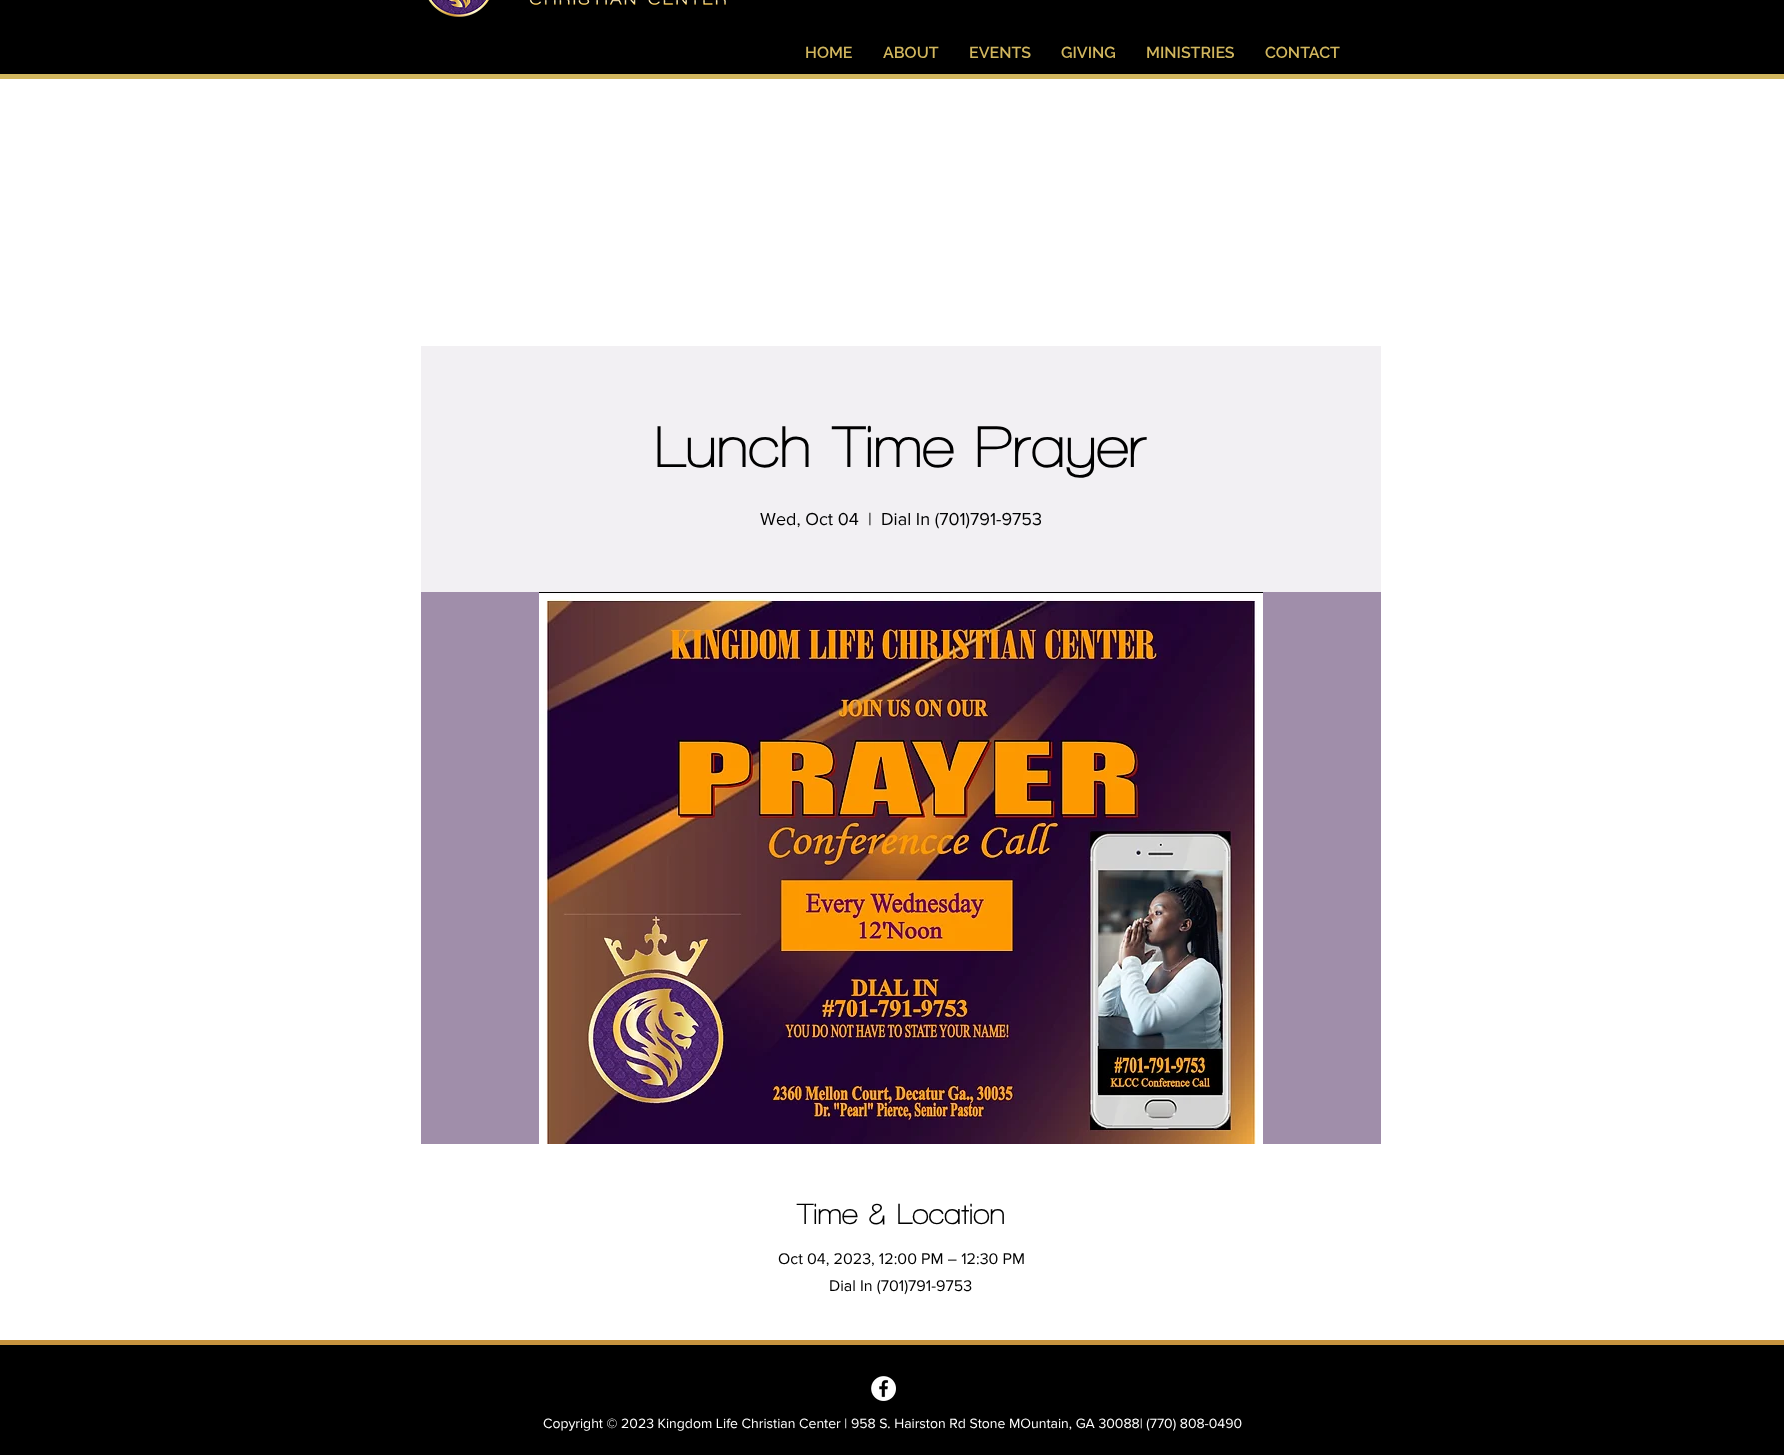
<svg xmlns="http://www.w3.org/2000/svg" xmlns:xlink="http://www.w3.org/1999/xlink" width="1784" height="1455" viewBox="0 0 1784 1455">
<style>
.cls-1{font:600 16px Raleway;fill:#d1b65e}
.cls-2{font:bold 60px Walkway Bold;fill:#000000}
.cls-3{font:18px 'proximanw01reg';fill:#000000}
.cls-4{font:bold 30px Walkway Bold;fill:#000000}
.cls-5{font:16px 'proximanw01reg';fill:#000000}
.cls-6{font:14px 'proximanw01reg';fill:#ffffff}
</style>
<rect width="100%" height="100%" fill="#ffffff"/>
<rect fill="#000000" x="0" y="0" width="1784" height="74"/>
<rect fill="#d1b65e" x="0" y="74" width="1784" height="5"/>
<image xlink:href="image0.png" x="428" y="0" width="61" height="17"/>
<image xlink:href="image1.png" x="529" y="0" width="197" height="5"/>
<rect fill="#f2f0f3" x="421" y="346" width="960" height="246"/>
<rect fill="#a08eaa" x="421" y="592" width="960" height="552"/>
<image xlink:href="image2.png" x="539" y="592" width="724" height="552"/>
<rect fill="#000000" x="0" y="1345" width="1784" height="110"/>
<rect fill="#c6933e" x="0" y="1340" width="1784" height="5"/>
<image xlink:href="image3.png" x="871" y="1376" width="25" height="25"/>
<text class="cls-1" x="805" y="58">HOME</text>
<text class="cls-1" x="883" y="58">ABOUT</text>
<text class="cls-1" x="969" y="58">EVENTS</text>
<text class="cls-1" x="1061" y="58">GIVING</text>
<text class="cls-1" x="1146" y="58">MINISTRIES</text>
<text class="cls-1" x="1265" y="58">CONTACT</text>
<text class="cls-2" x="655" y="467">Lunch Time Prayer</text>
<text class="cls-3" x="760" y="525">Wed, Oct 04</text>
<text class="cls-3" x="868" y="525">|</text>
<text class="cls-3" x="881" y="525">Dial In (701)791-9753</text>
<text class="cls-4" x="797" y="1224">Time &amp; Location</text>
<text class="cls-5" x="778" y="1264">Oct 04, 2023, 12:00 PM – 12:30 PM</text>
<text class="cls-5" x="829" y="1291">Dial In (701)791-9753</text>
<text class="cls-6" x="543" y="1428">Copyright © 2023 Kingdom Life Christian Center | 958 S. Hairston Rd Stone MOuntain, GA 30088| (770) 808-0490</text>
</svg>
